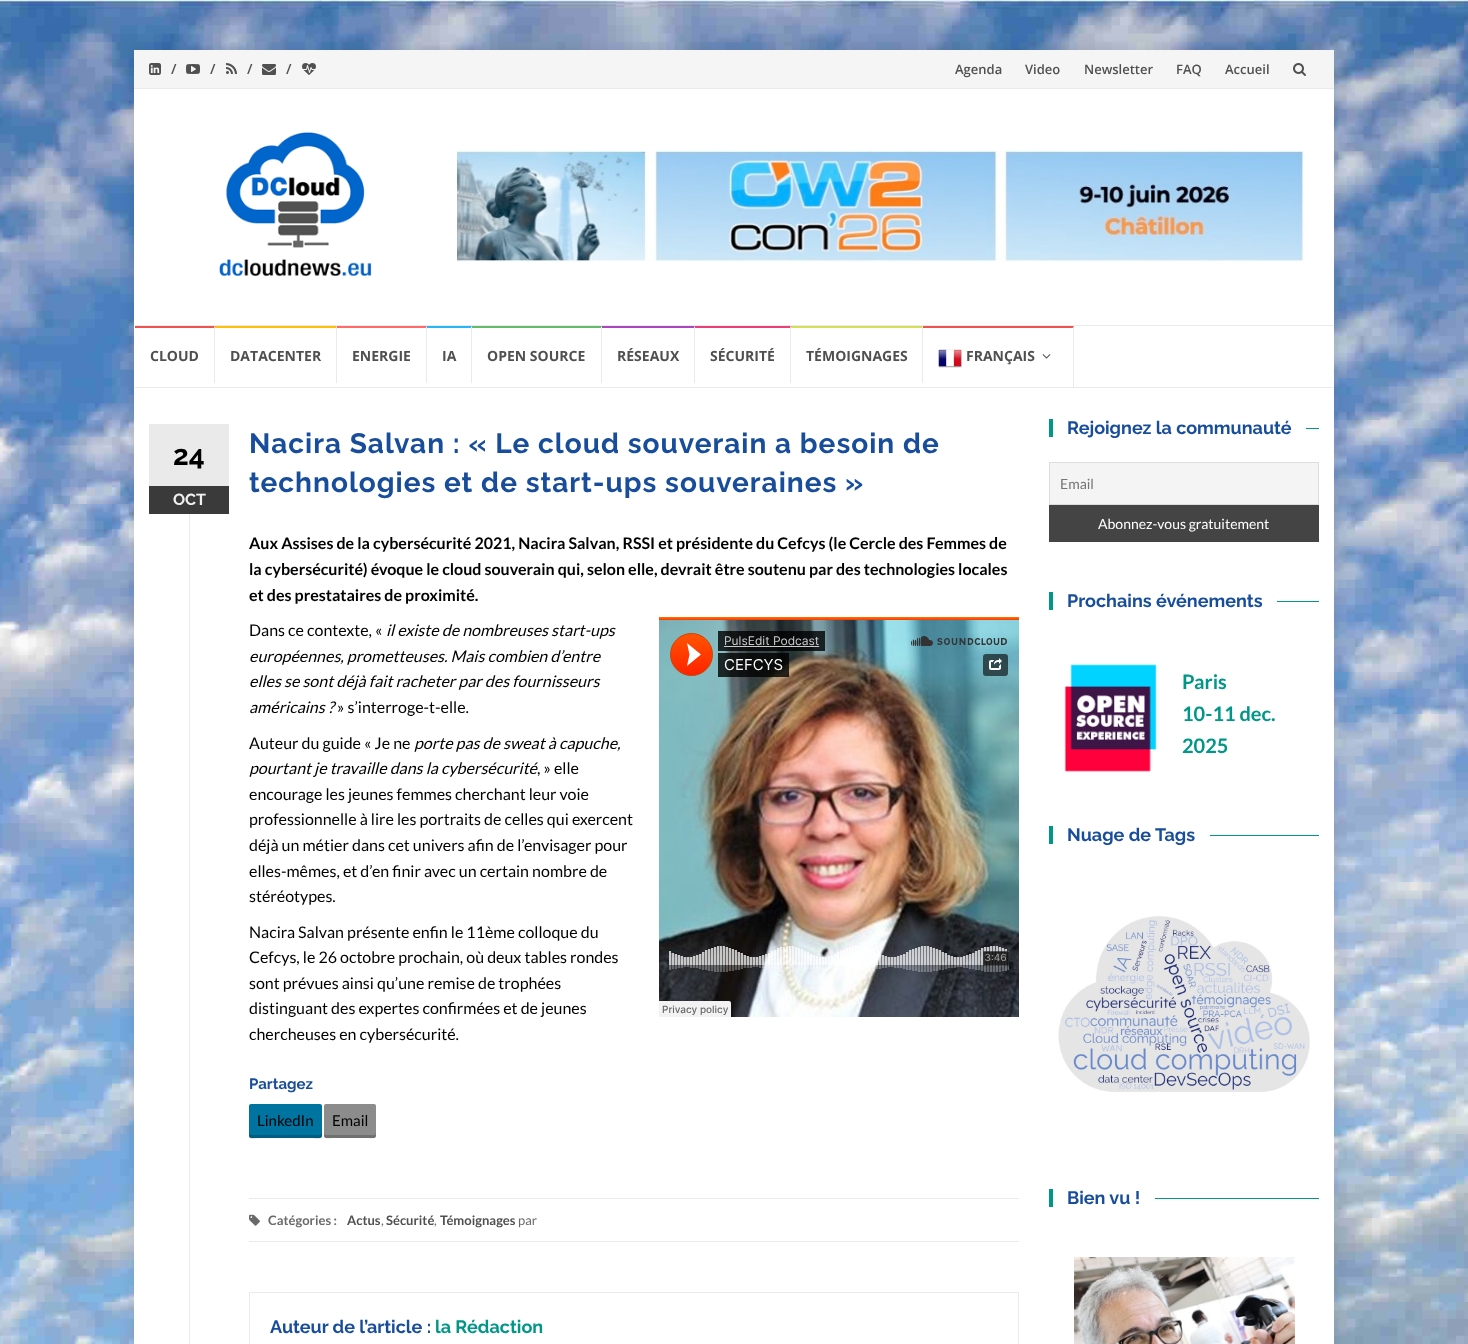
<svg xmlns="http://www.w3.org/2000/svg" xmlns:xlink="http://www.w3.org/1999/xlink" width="1468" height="1344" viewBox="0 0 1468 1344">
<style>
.cls-1{font:600 14px Open Sans;fill:#505050}
.cls-2{font:600 13px Open Sans;fill:#505050}
.cls-3{font:bold 14px Open Sans;fill:#505050}
.cls-4{font:bold 28px Raleway;fill:#000000}
.cls-5{font:bold 16px Raleway;fill:#f1f1f1}
.cls-6{font:bold 28px Raleway;letter-spacing:1px;fill:#184d9b}
.cls-7{font:bold 16px Lato;fill:#000000}
.cls-8{font:16px Lato;fill:#000000}
.cls-9{font:italic 16px Lato;fill:#000000}
.cls-10{font:bold 15px Raleway;fill:#184d9b}
.cls-11{font:15px Lato;fill:#000000}
.cls-12{font:bold 13px Lato;fill:#6a6a6a}
.cls-13{font:bold 13px Lato;fill:#505050}
.cls-14{font:13px Lato;fill:#6a6a6a}
.cls-15{font:bold 18px Raleway;fill:#184d9b}
.cls-16{font:bold 18px Raleway;fill:#009688}
.cls-17{font:14px Lato;fill:#757575}
.cls-18{font:14px Lato;fill:#ffffff}
.cls-19{font:bold 20px Lato;fill:#009688}
</style>
<rect width="100%" height="100%" fill="#ffffff"/>
<image xlink:href="image0.png" x="0" y="0" width="1468" height="1344"/>
<rect fill="#000000" fill-opacity="0.1" filter="blur(7.5px)" x="134" y="50" width="1200" height="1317"/>
<rect fill="#ffffff" x="134" y="89" width="1200" height="1255"/>
<rect fill="#f5f5f5" x="134" y="50" width="1200" height="38"/>
<rect fill="#eaeaea" x="134" y="88" width="1200" height="1"/>
<image xlink:href="image1.png" x="149" y="63" width="12" height="12"/>
<image xlink:href="image2.png" x="186" y="64" width="14" height="10"/>
<image xlink:href="image3.png" x="226" y="63" width="11" height="11"/>
<image xlink:href="image4.png" x="262" y="64" width="14" height="11"/>
<image xlink:href="image5.png" x="302" y="63" width="14" height="12"/>
<image xlink:href="image6.png" x="1293" y="63" width="13" height="13"/>
<image xlink:href="image7.png" x="219" y="132" width="153" height="145"/>
<image xlink:href="image8.png" x="457" y="151" width="847" height="111"/>
<rect fill="#eaeaea" x="135" y="325" width="1198" height="1"/>
<rect fill="#eaeaea" x="135" y="387" width="1198" height="1"/>
<path fill="#ef5350" d="M135 326H215L214 328H135Z"/>
<path fill="#eaeaea" d="M215 326V383H214V328Z"/>
<path fill="#ffc107" d="M215 326H337L336 328H215Z"/>
<path fill="#eaeaea" d="M337 326V383H336V328Z"/>
<path fill="#ff6b6b" d="M337 326H427L426 328H337Z"/>
<path fill="#eaeaea" d="M427 326V383H426V328Z"/>
<path fill="#29b6f6" d="M427 326H472L471 328H427Z"/>
<path fill="#eaeaea" d="M472 326V383H471V328Z"/>
<path fill="#66bb6a" d="M472 326H602L601 328H472Z"/>
<path fill="#eaeaea" d="M602 326V383H601V328Z"/>
<path fill="#ab47bc" d="M602 326H695L694 328H602Z"/>
<path fill="#eaeaea" d="M695 326V383H694V328Z"/>
<path fill="#ec407a" d="M695 326H791L790 328H695Z"/>
<path fill="#eaeaea" d="M791 326V383H790V328Z"/>
<path fill="#d4e157" d="M791 326H923L922 328H791Z"/>
<path fill="#eaeaea" d="M923 326V383H922V328Z"/>
<path fill="#ef5350" d="M923 326H1074L1073 328H923Z"/>
<path fill="#eaeaea" d="M1074 326V387H1073V328Z"/>
<image xlink:href="image9.png" x="938" y="349" width="24" height="19"/>
<image xlink:href="image10.png" x="1042" y="354" width="9" height="5"/>
<rect fill="#eaeaea" x="149" y="424" width="80" height="62"/>
<rect fill="#3a3a3a" x="149" y="486" width="80" height="28"/>
<rect fill="#eaeaea" x="189" y="514" width="1" height="830"/>
<image xlink:href="image11.png" x="659" y="617" width="360" height="400"/>
<rect fill="#0074a1" x="249" y="1104" width="73" height="34" rx="2"/>
<path fill="#000000" fill-opacity="0.2" d="M249 1133C249 1141 252 1138 262 1138H308C319 1138 322 1141 322 1133L321 1134L320 1135H251C250 1135 249 1134 249 1133Z"/>
<rect fill="#8c8c8c" x="324" y="1104" width="52" height="34" rx="2"/>
<path fill="#000000" fill-opacity="0.2" d="M324 1133C324 1140 326 1138 334 1138H366C374 1138 376 1140 376 1133L375 1135H325Z"/>
<rect fill="#eaeaea" x="249" y="1198" width="770" height="1"/>
<rect fill="#eaeaea" x="249" y="1241" width="770" height="1"/>
<image xlink:href="image12.png" x="249" y="1214" width="11" height="12"/>
<rect fill="none" stroke="#eaeaea" x="249.5" y="1292.5" width="769" height="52"/>
<rect fill="#009688" x="1049" y="419" width="4" height="18"/>
<rect fill="#009688" x="1306" y="428" width="13" height="1"/>
<rect fill="#f4f4f4" stroke="#dddddd" x="1049.5" y="462.5" width="269" height="42"/>
<rect fill="#444444" x="1049" y="505" width="270" height="37"/>
<rect fill="#009688" x="1049" y="592" width="4" height="18"/>
<rect fill="#009688" x="1277" y="601" width="42" height="1"/>
<image xlink:href="image13.png" x="1064" y="664" width="93" height="108"/>
<rect fill="#009688" x="1049" y="826" width="4" height="18"/>
<rect fill="#009688" x="1210" y="835" width="109" height="1"/>
<image xlink:href="image14.png" x="1058" y="916" width="252" height="176"/>
<rect fill="#009688" x="1049" y="1189" width="4" height="18"/>
<rect fill="#009688" x="1155" y="1198" width="164" height="1"/>
<image xlink:href="image15.png" x="1074" y="1257" width="221" height="87"/>
<text class="cls-1" x="171" y="74">/</text>
<text class="cls-1" x="210" y="74">/</text>
<text class="cls-1" x="247" y="74">/</text>
<text class="cls-1" x="286" y="74">/</text>
<text class="cls-2" x="955" y="74">Agenda</text>
<text class="cls-2" x="1025" y="74">Video</text>
<text class="cls-2" x="1084" y="74">Newsletter</text>
<text class="cls-2" x="1176" y="74">FAQ</text>
<text class="cls-2" x="1225" y="74">Accueil</text>
<text class="cls-3" x="150" y="361">CLOUD</text>
<text class="cls-3" x="230" y="361">DATACENTER</text>
<text class="cls-3" x="352" y="361">ENERGIE</text>
<text class="cls-3" x="442" y="361">IA</text>
<text class="cls-3" x="487" y="361">OPEN SOURCE</text>
<text class="cls-3" x="617" y="361">RÉSEAUX</text>
<text class="cls-3" x="710" y="361">SÉCURITÉ</text>
<text class="cls-3" x="806" y="361">TÉMOIGNAGES</text>
<text class="cls-3" x="966" y="361">FRANÇAIS</text>
<text class="cls-4" x="173" y="465">24</text>
<text class="cls-5" x="173" y="505">OCT</text>
<text class="cls-6"><tspan x="249" y="453">Nacira Salvan : « Le cloud souverain a besoin de</tspan><tspan x="249" y="492">technologies et de start-ups souveraines »</tspan></text>
<text class="cls-7"><tspan x="249" y="549">Aux Assises de la cybersécurité 2021, Nacira Salvan, RSSI et présidente du Cefcys (le Cercle des Femmes de</tspan><tspan x="249" y="575">la cybersécurité) évoque le cloud souverain qui, selon elle, devrait être soutenu par des technologies locales</tspan><tspan x="249" y="601">et des prestataires de proximité.</tspan></text>
<text class="cls-8" x="249" y="636">Dans ce contexte, «</text>
<text class="cls-9" x="386" y="636">il existe de nombreuses start-ups</text>
<text class="cls-9"><tspan x="249" y="662">européennes, prometteuses. Mais combien d’entre</tspan><tspan x="249" y="687">elles se sont déjà fait racheter par des fournisseurs</tspan><tspan x="249" y="713">américains ?</tspan></text>
<text class="cls-8" x="337" y="713">» s’interroge-t-elle.</text>
<text class="cls-8" x="249" y="749">Auteur du guide « Je ne</text>
<text class="cls-9" x="414" y="749">porte pas de sweat à capuche,</text>
<text class="cls-9" x="249" y="774">pourtant je travaille dans la cybersécurité</text>
<text class="cls-8" x="537" y="774">, » elle</text>
<text class="cls-8"><tspan x="249" y="800">encourage les jeunes femmes cherchant leur voie</tspan><tspan x="249" y="825">professionnelle à lire les portraits de celles qui exercent</tspan><tspan x="249" y="851">déjà un métier dans cet univers afin de l’envisager pour</tspan><tspan x="249" y="877">elles-mêmes, et d’en finir avec un certain nombre de</tspan><tspan x="249" y="902">stéréotypes.</tspan></text>
<text class="cls-8"><tspan x="249" y="938">Nacira Salvan présente enfin le 11ème colloque du</tspan><tspan x="249" y="963">Cefcys, le 26 octobre prochain, où deux tables rondes</tspan><tspan x="249" y="989">sont prévues ainsi qu’une remise de trophées</tspan><tspan x="249" y="1014">distinguant des expertes confirmées et de jeunes</tspan><tspan x="249" y="1040">chercheuses en cybersécurité.</tspan></text>
<text class="cls-10" x="249" y="1089">Partagez</text>
<text class="cls-11" x="257" y="1126">LinkedIn</text>
<text class="cls-11" x="332" y="1126">Email</text>
<text class="cls-12" x="268" y="1225">Catégories :</text>
<text class="cls-13" x="347" y="1225">Actus</text>
<text class="cls-14" x="381" y="1225">,</text>
<text class="cls-13" x="386" y="1225">Sécurité</text>
<text class="cls-14" x="434" y="1225">,</text>
<text class="cls-13" x="440" y="1225">Témoignages</text>
<text class="cls-14" x="518" y="1225">par</text>
<text class="cls-15" x="270" y="1333">Auteur de l’article :</text>
<text class="cls-16" x="435" y="1333">la Rédaction</text>
<text class="cls-15" x="1067" y="434">Rejoignez la communauté</text>
<text class="cls-17" x="1060" y="489">Email</text>
<text class="cls-18" x="1098" y="529">Abonnez-vous gratuitement</text>
<text class="cls-15" x="1067" y="607">Prochains événements</text>
<text class="cls-19"><tspan x="1182" y="689">Paris</tspan><tspan x="1182" y="721">10-11 dec.</tspan><tspan x="1182" y="753">2025</tspan></text>
<text class="cls-15" x="1067" y="841">Nuage de Tags</text>
<text class="cls-15" x="1067" y="1204">Bien vu !</text>
</svg>
